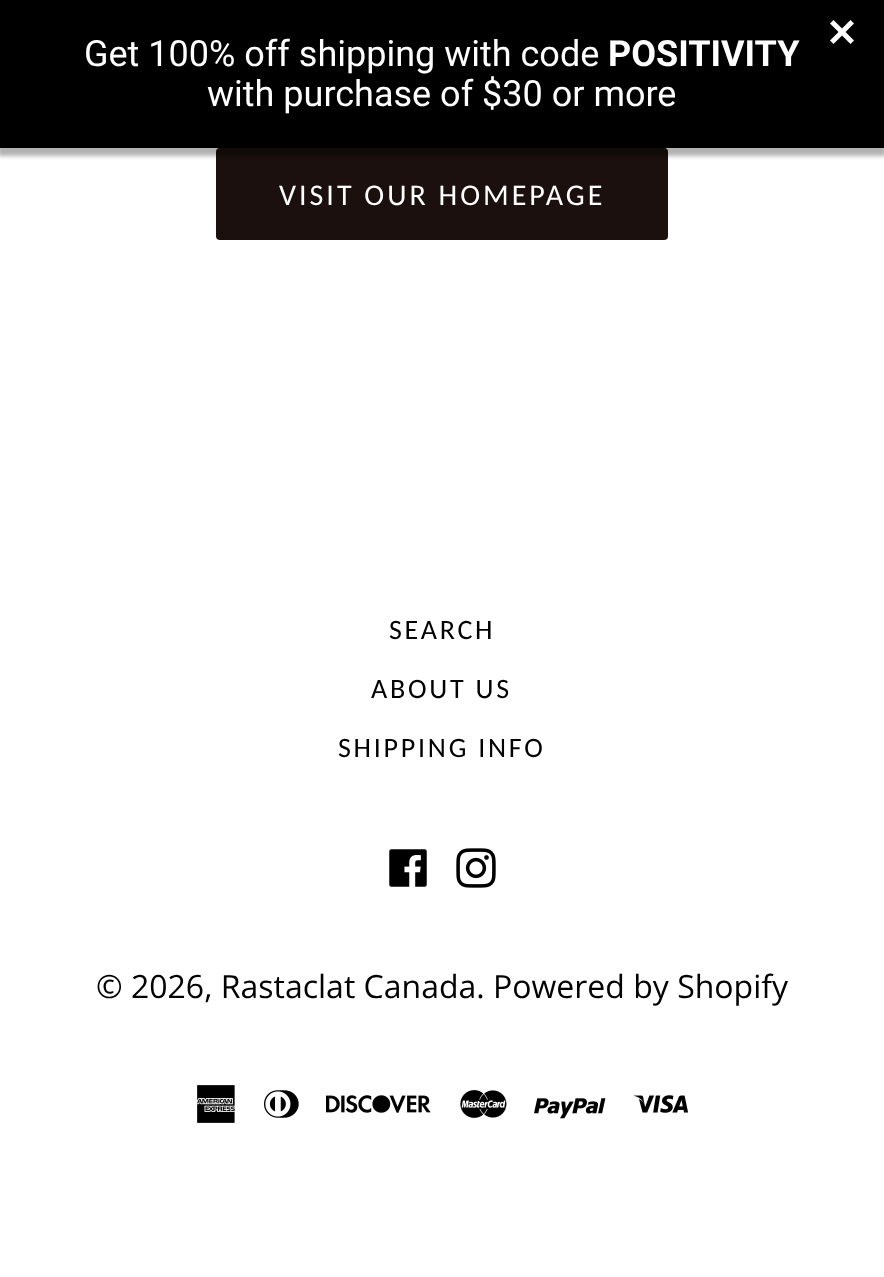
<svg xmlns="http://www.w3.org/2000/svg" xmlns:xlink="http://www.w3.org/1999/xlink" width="884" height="1277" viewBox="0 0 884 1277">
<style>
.cls-1{font:36px Roboto;fill:#ffffff}
.cls-2{font:bold 36px Roboto;fill:#ffffff}
.cls-3{font:30px Carlito;letter-spacing:3px;fill:#ffffff}
.cls-4{font:28px Carlito;letter-spacing:2.75px;fill:#000000}
.cls-5{font:32px Open Sans;fill:#000000}
</style>
<rect width="100%" height="100%" fill="#ffffff"/>
<rect fill="#1b100e" x="216" y="148" width="452" height="92" rx="4"/>
<rect fill="#000000" fill-opacity="0.3" filter="blur(2px)" x="-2" y="4" width="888" height="152"/>
<rect fill="#000000" x="0" y="0" width="884" height="148"/>
<image xlink:href="image0.png" x="830" y="20" width="24" height="24"/>
<image xlink:href="image1.png" x="389" y="849" width="38" height="38"/>
<image xlink:href="image2.png" x="456" y="848" width="40" height="40"/>
<image xlink:href="image3.png" x="197" y="1085" width="38" height="38"/>
<image xlink:href="image4.png" x="264" y="1090" width="35" height="28"/>
<image xlink:href="image5.png" x="326" y="1095" width="105" height="18"/>
<image xlink:href="image6.png" x="460" y="1090" width="47" height="28"/>
<image xlink:href="image7.png" x="534" y="1098" width="72" height="21"/>
<image xlink:href="image8.png" x="634" y="1095" width="55" height="18"/>
<text class="cls-1" x="84" y="66">Get 100% off shipping with code</text>
<text class="cls-2" x="608" y="66">POSITIVITY</text>
<text class="cls-1" x="207" y="106">with purchase of $30 or more</text>
<text class="cls-3" x="279" y="205">VISIT OUR HOMEPAGE</text>
<text class="cls-4" x="389" y="639">SEARCH</text>
<text class="cls-4" x="371" y="698">ABOUT US</text>
<text class="cls-4" x="338" y="757">SHIPPING INFO</text>
<text class="cls-5" x="96" y="998">© 2026, Rastaclat Canada. Powered by Shopify</text>
</svg>
